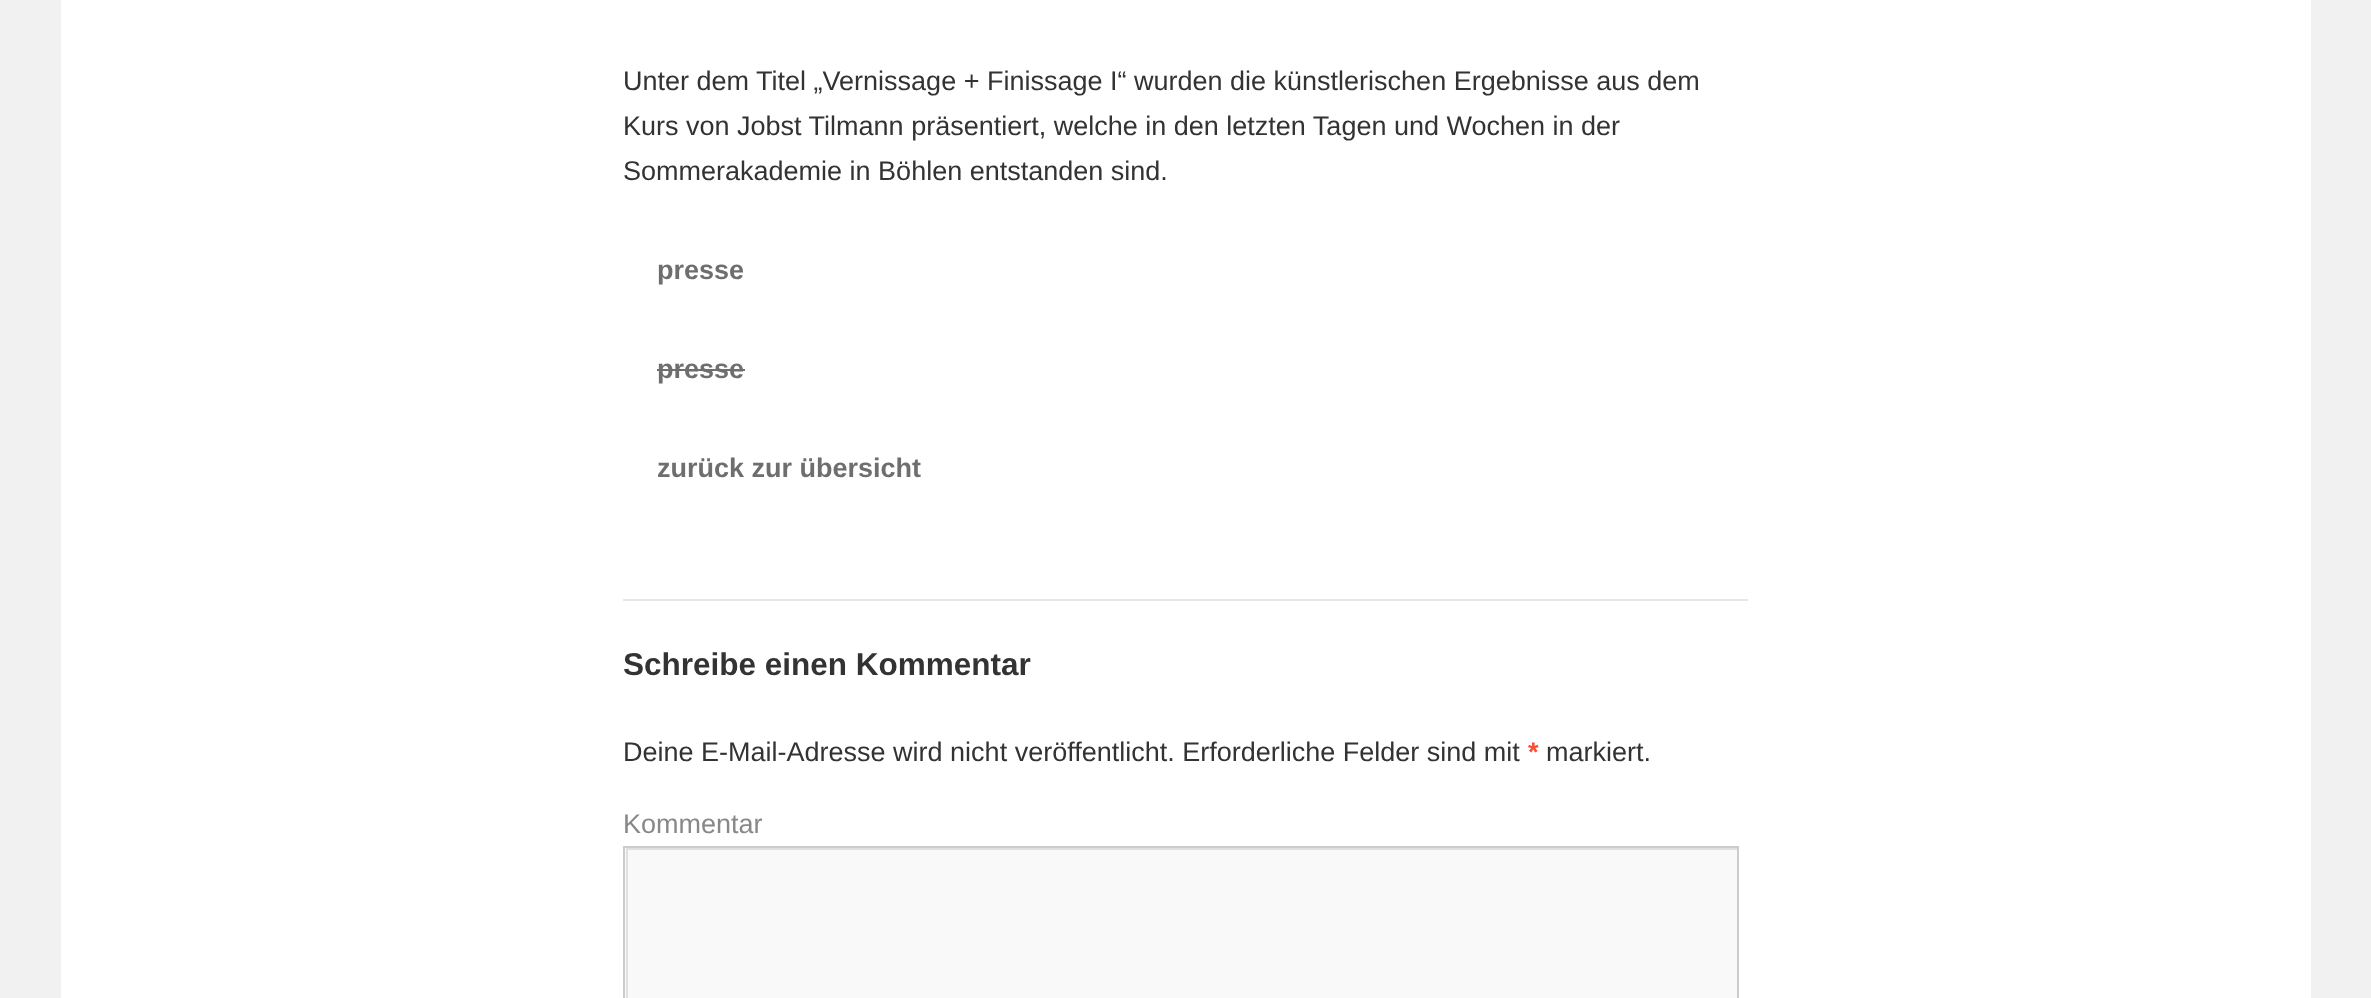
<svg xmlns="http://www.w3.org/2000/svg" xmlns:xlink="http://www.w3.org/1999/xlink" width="2371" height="998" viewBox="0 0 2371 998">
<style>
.cls-1{font:27px Liberation Sans;fill:#333333}
.cls-2{font:bold 27px Liberation Sans;fill:#6e6e6e}
.cls-3{font:bold 31.5px Liberation Sans;fill:#333333}
.cls-4{font:bold 27px Liberation Sans;fill:#ff4b33}
.cls-5{font:27px Liberation Sans;fill:#888888}
</style>
<defs>
<clipPath id="clip1"><rect x="626" y="848" width="1111" height="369"/></clipPath>
</defs>
<rect width="100%" height="100%" fill="#f1f1f1"/>
<rect fill="#ffffff" x="61" y="0" width="2250" height="998"/>
<rect fill="#6e6e6e" x="657" y="369" width="88" height="2"/>
<rect fill="#e7e7e7" x="623" y="599" width="1125" height="2"/>
<rect fill="#f9f9f9" x="625" y="848" width="1112" height="150"/>
<g clip-path="url(#clip1)">
<path fill="#e0e0e0" fill-rule="evenodd" d="M403 626H1960V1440H403ZM628 850H1739V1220H628Z"/>
</g>
<rect fill="none" stroke="#cccccc" stroke-width="2" x="624" y="847" width="1114" height="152"/>
<text class="cls-1"><tspan x="623" y="90">Unter dem Titel „Vernissage + Finissage I“ wurden die künstlerischen Ergebnisse aus dem</tspan><tspan x="623" y="135">Kurs von Jobst Tilmann präsentiert, welche in den letzten Tagen und Wochen in der</tspan><tspan x="623" y="180">Sommerakademie in Böhlen entstanden sind.</tspan></text>
<text class="cls-2" x="657" y="279">presse</text>
<text class="cls-2" x="657" y="378">presse</text>
<text class="cls-2" x="657" y="477">zurück zur übersicht</text>
<text class="cls-3" x="623" y="675">Schreibe einen Kommentar</text>
<text class="cls-1" x="623" y="761">Deine E-Mail-Adresse wird nicht veröffentlicht. Erforderliche Felder sind mit</text>
<text class="cls-4" x="1528" y="761">*</text>
<text class="cls-1" x="1546" y="761">markiert.</text>
<text class="cls-5" x="623" y="833">Kommentar</text>
</svg>
